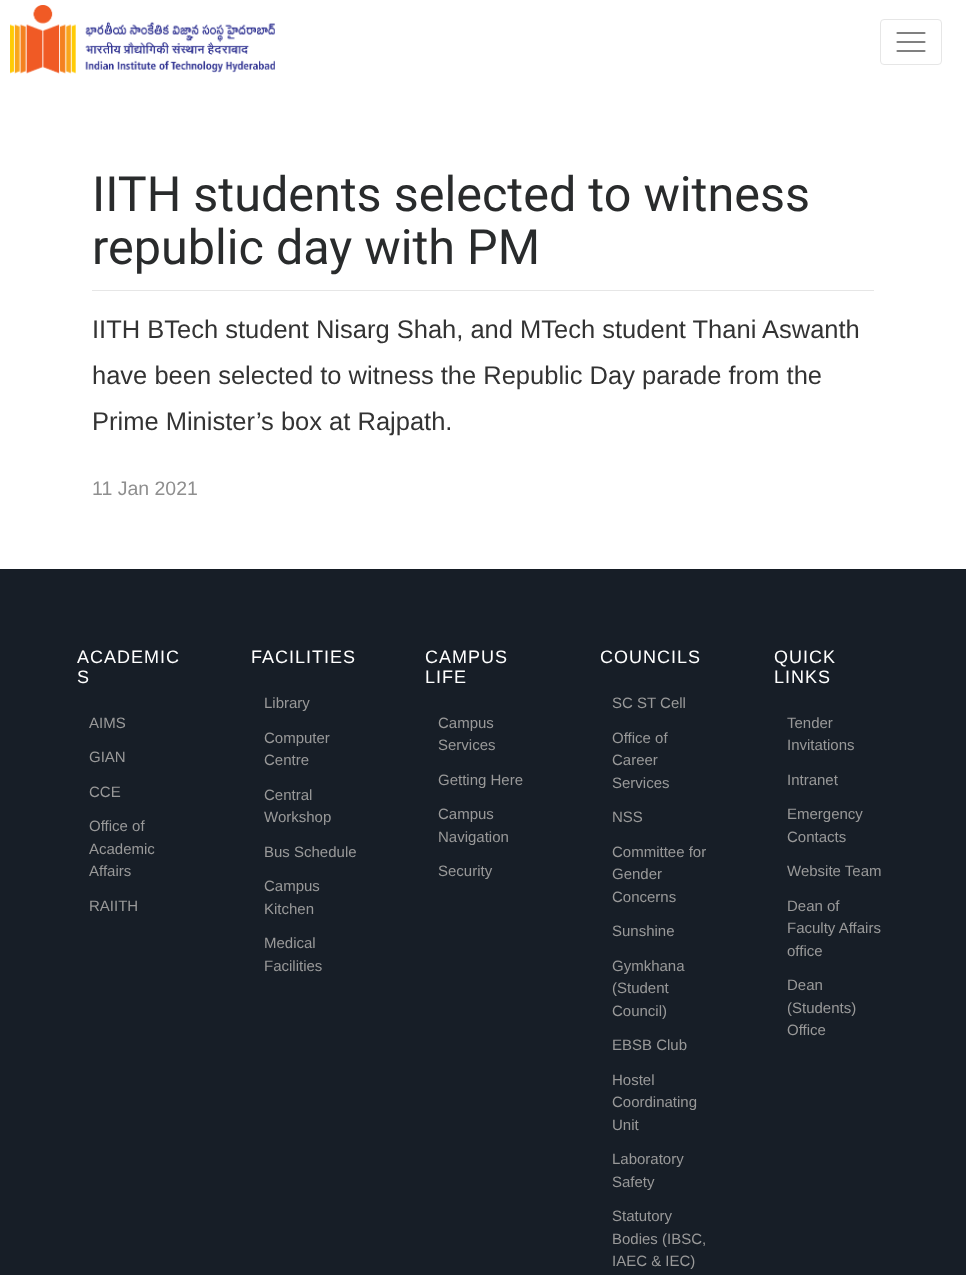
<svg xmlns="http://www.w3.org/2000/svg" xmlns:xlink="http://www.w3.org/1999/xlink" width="966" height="1275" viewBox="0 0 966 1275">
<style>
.cls-1{font:48.5px Roboto;fill:#292b2c}
.cls-2{font:25.5px Liberation Sans;fill:#333333}
.cls-3{font:19.5px Liberation Sans;fill:#8f8f8f}
.cls-4{font:18px Liberation Sans;letter-spacing:1px;fill:#ffffff}
.cls-5{font:15px Liberation Sans;fill:#999999}
</style>
<rect width="100%" height="100%" fill="#ffffff"/>
<image xlink:href="image0.png" x="10" y="5" width="265" height="69"/>
<rect fill="none" stroke="#e6e6e6" x="880.5" y="19.5" width="61" height="45" rx="3.5"/>
<path fill="none" stroke="#808080" stroke-width="2.2" stroke-linecap="round" d="M897.5 33H924.5M897.5 42H924.5M897.5 51H924.5"/>
<rect fill="#e6e6e6" x="92" y="290" width="782" height="1"/>
<rect fill="#171e27" x="0" y="570" width="966" height="705"/>
<rect fill="#161d25" x="0" y="569" width="966" height="1"/>
<text class="cls-1"><tspan x="92" y="211">IITH students selected to witness</tspan><tspan x="92" y="264">republic day with PM</tspan></text>
<text class="cls-2"><tspan x="92" y="338">IITH BTech student Nisarg Shah, and MTech student Thani Aswanth</tspan><tspan x="92" y="384">have been selected to witness the Republic Day parade from the</tspan><tspan x="92" y="430">Prime Minister’s box at Rajpath.</tspan></text>
<text class="cls-3" x="92" y="495">11 Jan 2021</text>
<text class="cls-4"><tspan x="77" y="663">ACADEMIC</tspan><tspan x="77" y="683">S</tspan></text>
<text class="cls-5" x="89" y="728">AIMS</text>
<text class="cls-5" x="89" y="762">GIAN</text>
<text class="cls-5" x="89" y="797">CCE</text>
<text class="cls-5"><tspan x="89" y="831">Office of</tspan><tspan x="89" y="854">Academic</tspan><tspan x="89" y="876">Affairs</tspan></text>
<text class="cls-5" x="89" y="911">RAIITH</text>
<text class="cls-4" x="251" y="663">FACILITIES</text>
<text class="cls-5" x="264" y="708">Library</text>
<text class="cls-5"><tspan x="264" y="743">Computer</tspan><tspan x="264" y="765">Centre</tspan></text>
<text class="cls-5"><tspan x="264" y="800">Central</tspan><tspan x="264" y="822">Workshop</tspan></text>
<text class="cls-5" x="264" y="857">Bus Schedule</text>
<text class="cls-5"><tspan x="264" y="891">Campus</tspan><tspan x="264" y="914">Kitchen</tspan></text>
<text class="cls-5"><tspan x="264" y="948">Medical</tspan><tspan x="264" y="971">Facilities</tspan></text>
<text class="cls-4"><tspan x="425" y="663">CAMPUS</tspan><tspan x="425" y="683">LIFE</tspan></text>
<text class="cls-5"><tspan x="438" y="728">Campus</tspan><tspan x="438" y="750">Services</tspan></text>
<text class="cls-5" x="438" y="785">Getting Here</text>
<text class="cls-5"><tspan x="438" y="819">Campus</tspan><tspan x="438" y="842">Navigation</tspan></text>
<text class="cls-5" x="438" y="876">Security</text>
<text class="cls-4" x="600" y="663">COUNCILS</text>
<text class="cls-5" x="612" y="708">SC ST Cell</text>
<text class="cls-5"><tspan x="612" y="743">Office of</tspan><tspan x="612" y="765">Career</tspan><tspan x="612" y="788">Services</tspan></text>
<text class="cls-5" x="612" y="822">NSS</text>
<text class="cls-5"><tspan x="612" y="857">Committee for</tspan><tspan x="612" y="879">Gender</tspan><tspan x="612" y="902">Concerns</tspan></text>
<text class="cls-5" x="612" y="936">Sunshine</text>
<text class="cls-5"><tspan x="612" y="971">Gymkhana</tspan><tspan x="612" y="993">(Student</tspan><tspan x="612" y="1016">Council)</tspan></text>
<text class="cls-5" x="612" y="1050">EBSB Club</text>
<text class="cls-5"><tspan x="612" y="1085">Hostel</tspan><tspan x="612" y="1107">Coordinating</tspan><tspan x="612" y="1130">Unit</tspan></text>
<text class="cls-5"><tspan x="612" y="1164">Laboratory</tspan><tspan x="612" y="1187">Safety</tspan></text>
<text class="cls-5"><tspan x="612" y="1221">Statutory</tspan><tspan x="612" y="1244">Bodies (IBSC,</tspan><tspan x="612" y="1266">IAEC &amp; IEC)</tspan></text>
<text class="cls-4"><tspan x="774" y="663">QUICK</tspan><tspan x="774" y="683">LINKS</tspan></text>
<text class="cls-5"><tspan x="787" y="728">Tender</tspan><tspan x="787" y="750">Invitations</tspan></text>
<text class="cls-5" x="787" y="785">Intranet</text>
<text class="cls-5"><tspan x="787" y="819">Emergency</tspan><tspan x="787" y="842">Contacts</tspan></text>
<text class="cls-5" x="787" y="876">Website Team</text>
<text class="cls-5"><tspan x="787" y="911">Dean of</tspan><tspan x="787" y="933">Faculty Affairs</tspan><tspan x="787" y="956">office</tspan></text>
<text class="cls-5"><tspan x="787" y="990">Dean</tspan><tspan x="787" y="1013">(Students)</tspan><tspan x="787" y="1035">Office</tspan></text>
</svg>
